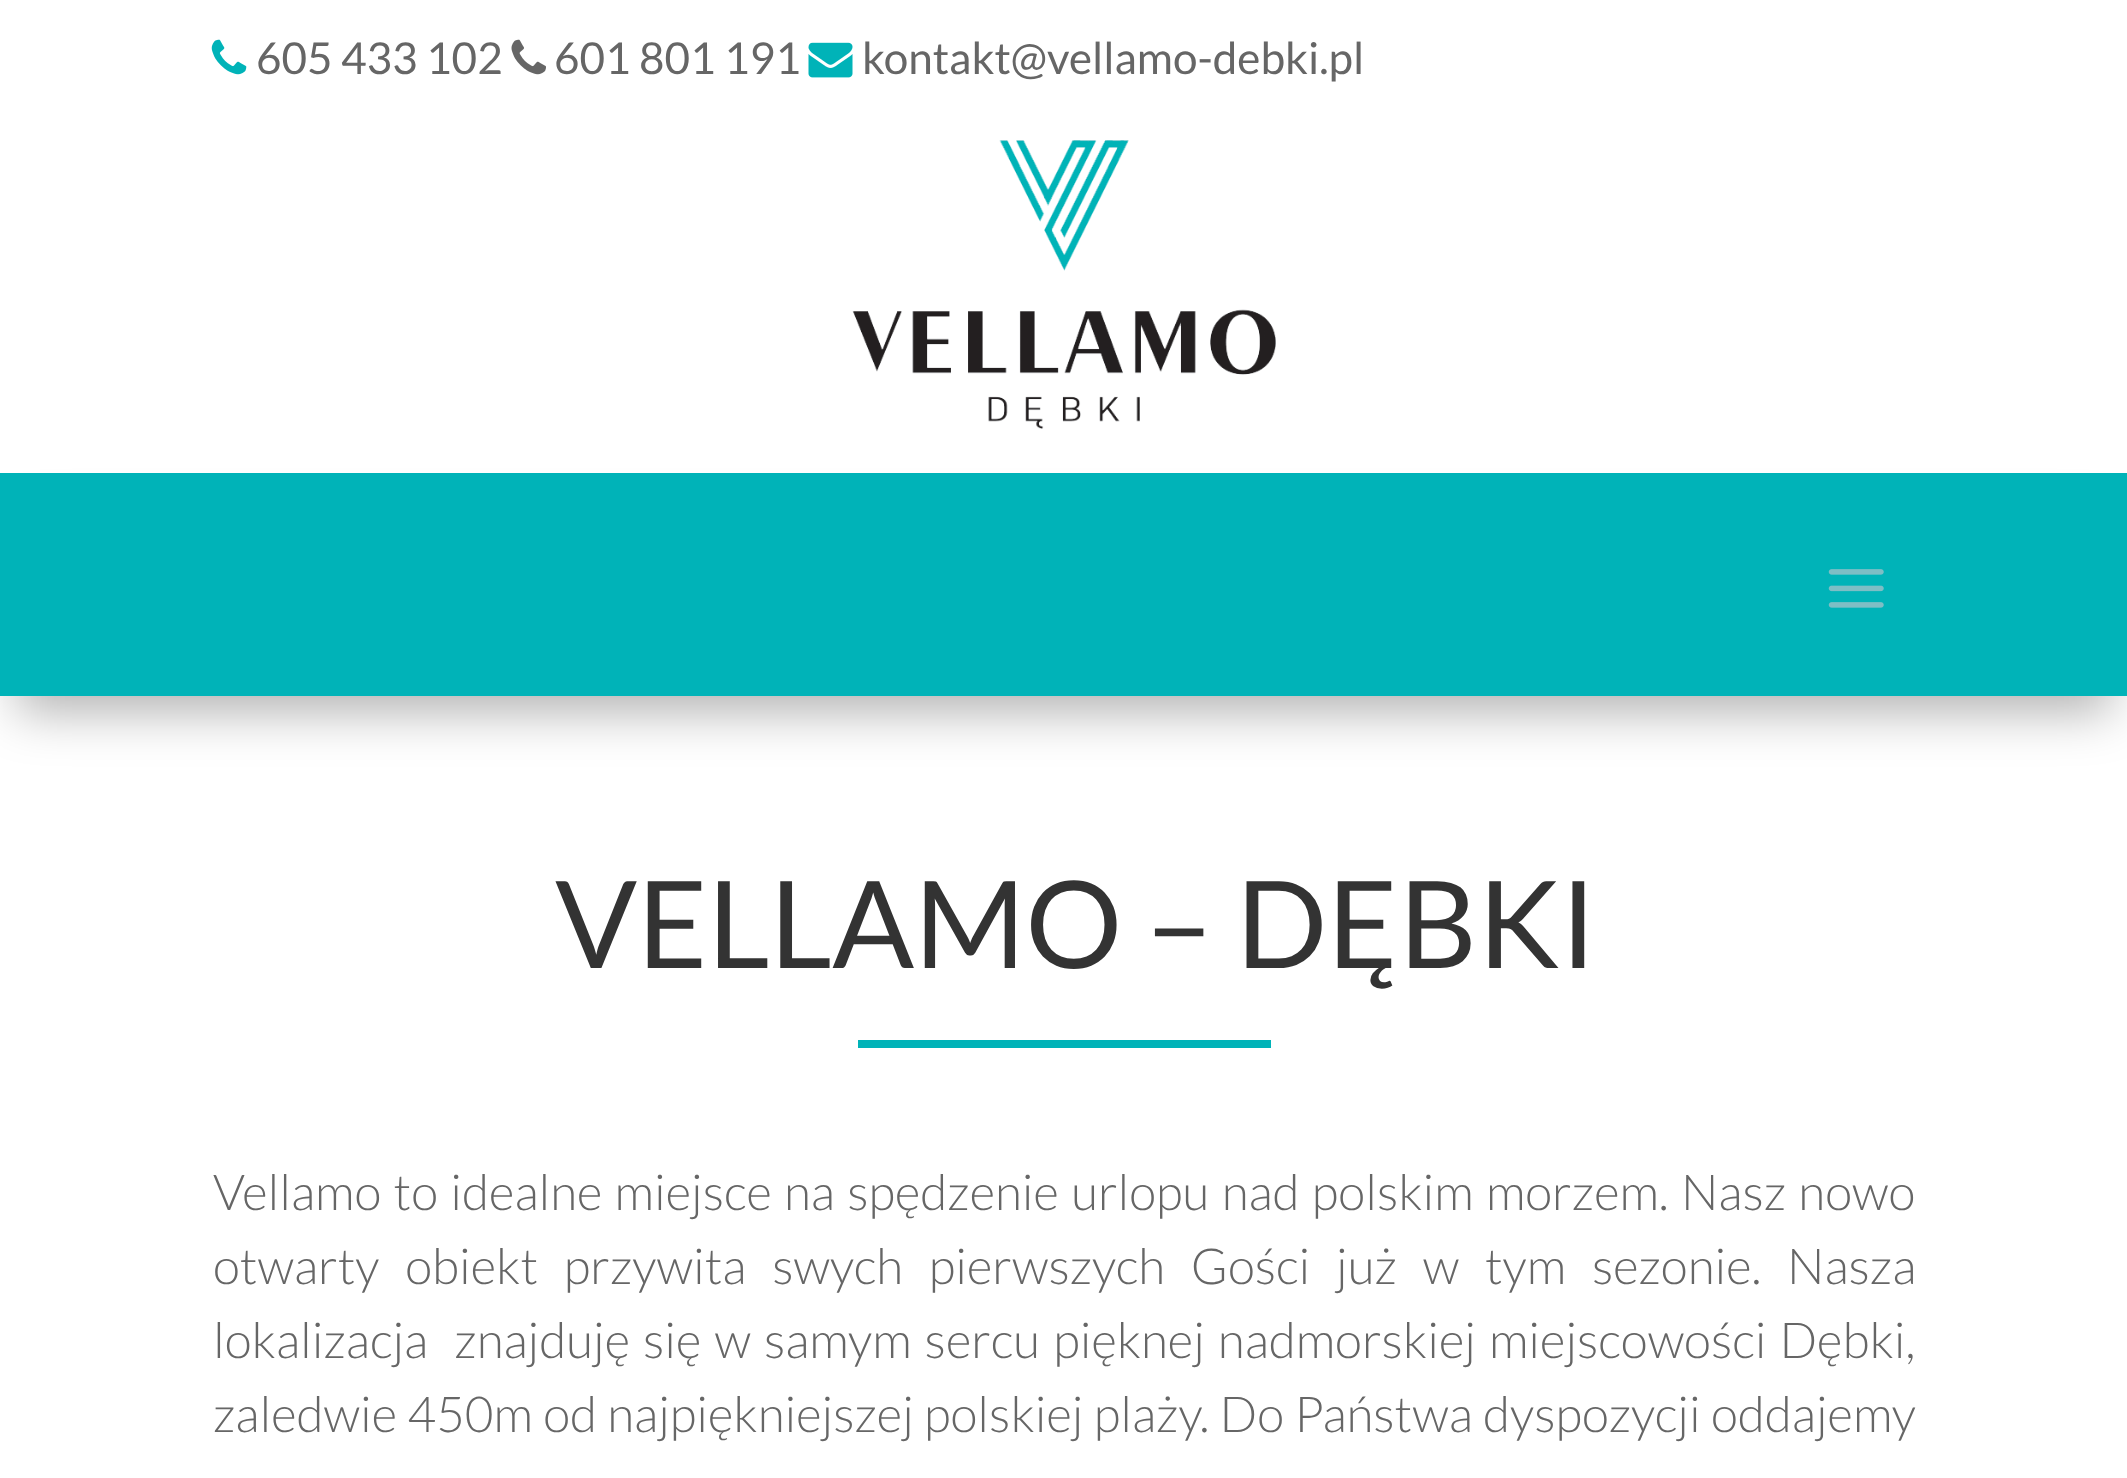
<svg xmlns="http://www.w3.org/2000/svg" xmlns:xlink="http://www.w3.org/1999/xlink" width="2127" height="1478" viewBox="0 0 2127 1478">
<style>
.cls-1{font:44px Lato;fill:#666666}
.cls-2{font:121px Lato;fill:#333333}
.cls-3{font:300 49.5px Lato;fill:#666666}
</style>
<rect width="100%" height="100%" fill="#ffffff"/>
<image xlink:href="image0.png" x="211" y="39" width="36" height="36"/>
<image xlink:href="image1.png" x="511" y="39" width="35" height="36"/>
<image xlink:href="image2.png" x="808" y="42" width="45" height="36"/>
<image xlink:href="image3.png" x="852" y="140" width="424" height="289"/>
<rect fill="#000000" fill-opacity="0.3" filter="blur(25px)" x="17" y="523" width="2095" height="189"/>
<rect fill="#00b3b8" x="0" y="473" width="2127" height="223"/>
<image xlink:href="image4.png" x="1828" y="569" width="56" height="39"/>
<rect fill="#00b3b8" x="858" y="1040" width="413" height="8"/>
<text class="cls-1" x="256" y="74">605 433 102</text>
<text class="cls-1" x="554" y="74">601 801 191</text>
<text class="cls-1" x="862" y="74">kontakt@vellamo-debki.pl</text>
<text class="cls-2" x="555" y="968">VELLAMO – DĘBKI</text>
<text class="cls-3" xml:space="preserve"><tspan x="213" y="1210" word-spacing="2.75">Vellamo to idealne miejsce na spędzenie urlopu nad polskim morzem. Nasz nowo</tspan><tspan x="213" y="1284" word-spacing="16.25">otwarty obiekt przywita swych pierwszych Gości już w tym sezonie. Nasza</tspan><tspan x="213" y="1358" word-spacing="3.5">lokalizacja  znajduję się w samym sercu pięknej nadmorskiej miejscowości Dębki,</tspan><tspan x="213" y="1432" word-spacing="0.75">zaledwie 450m od najpiękniejszej polskiej plaży. Do Państwa dyspozycji oddajemy</tspan></text>
</svg>
